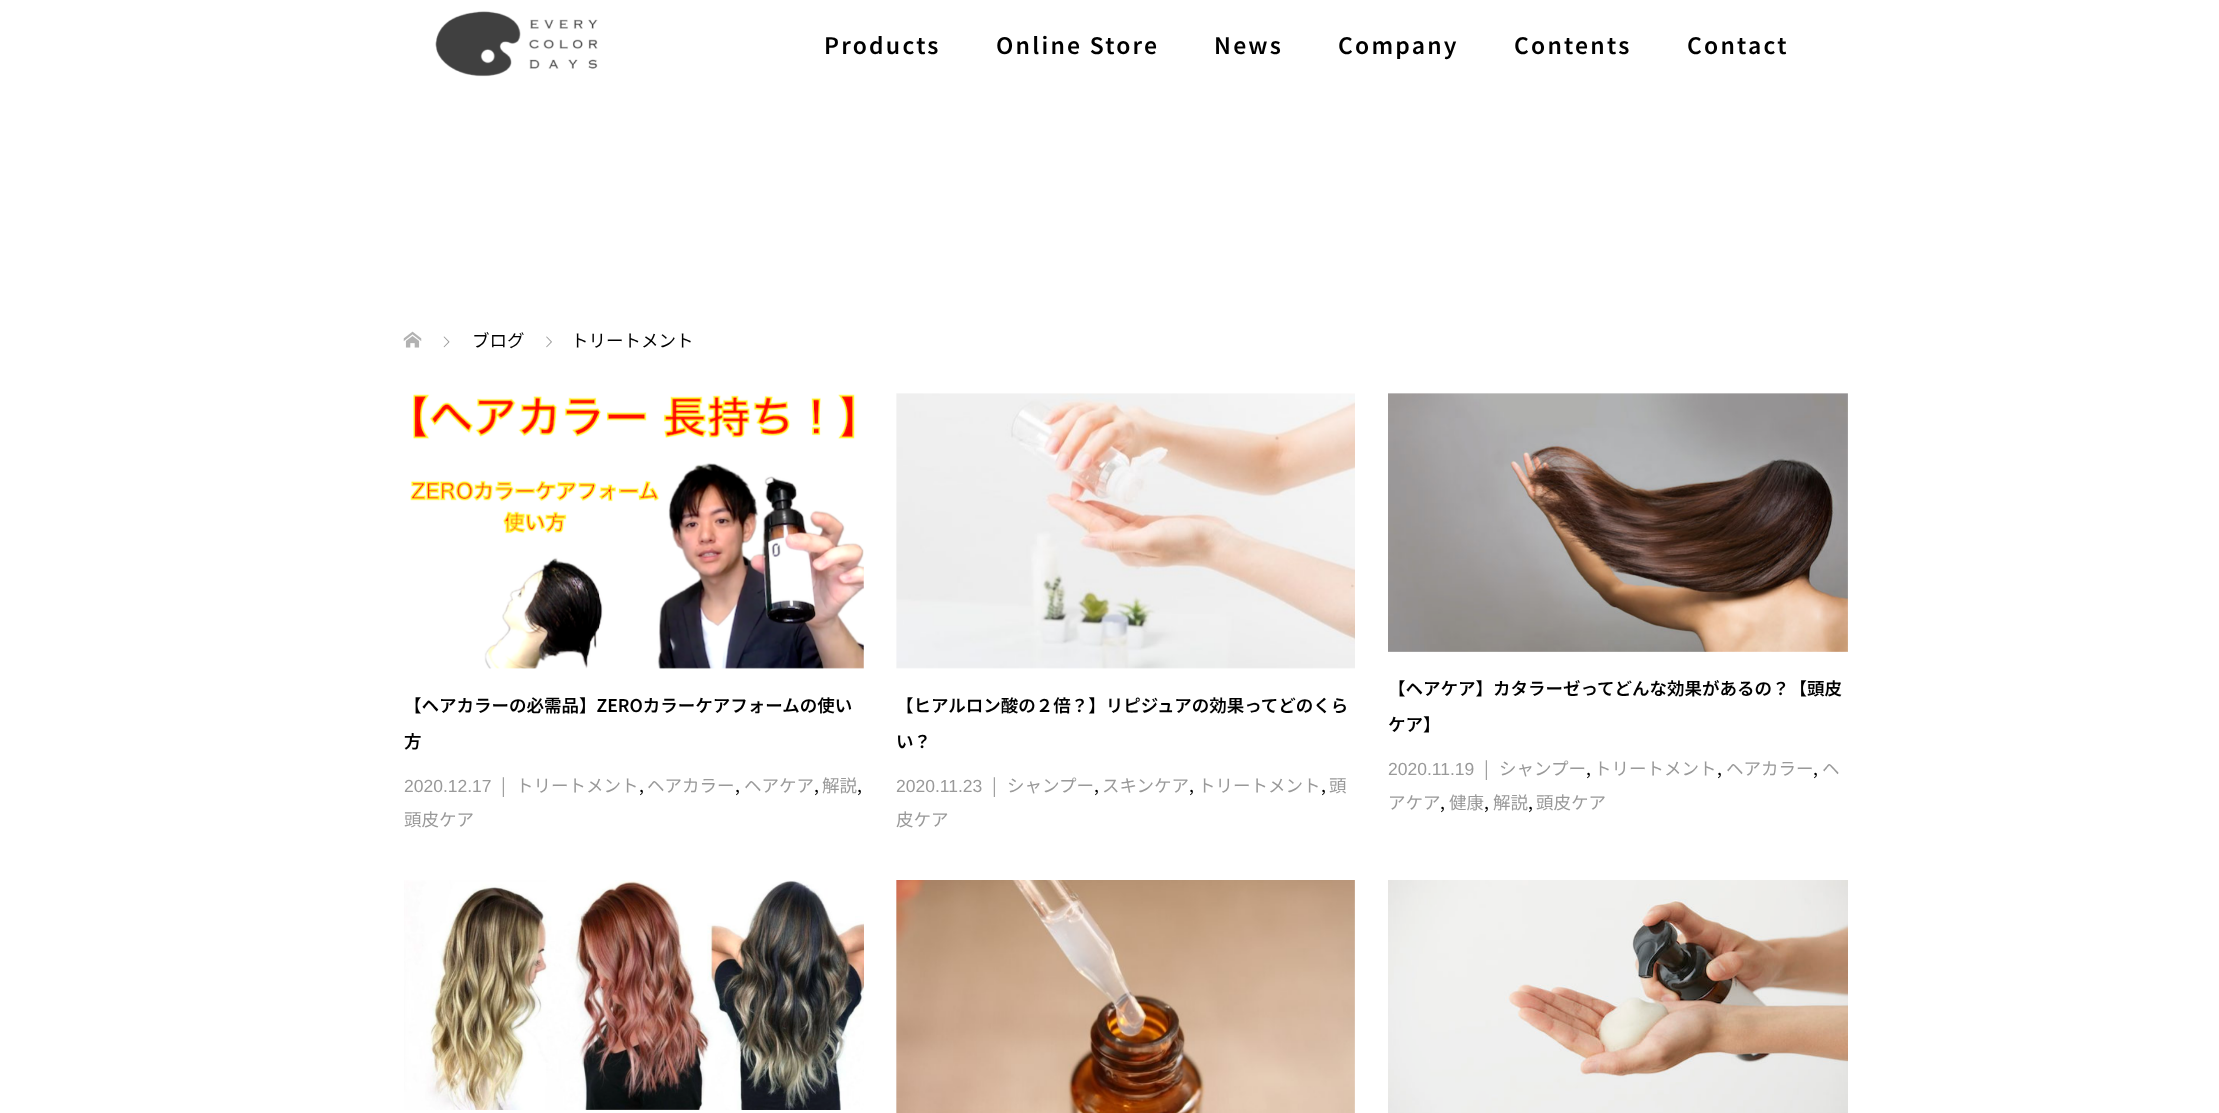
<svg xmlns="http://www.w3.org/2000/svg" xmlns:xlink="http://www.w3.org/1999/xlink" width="2219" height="1113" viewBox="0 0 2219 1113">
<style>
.cls-1{font:600 22.75px Noto Sans JP;letter-spacing:2.25px;fill:#000000}
.cls-2{font:17.5px Noto Sans JP;fill:#000000}
.cls-3{font:600 17.5px Noto Sans JP;fill:#000000}
.cls-4{font:17.5px Noto Sans JP;fill:#999999}
.cls-5{font:17.5px Liberation Sans;fill:#999999}
</style>
<rect width="100%" height="100%" fill="#ffffff"/>
<image xlink:href="image0.png" x="435" y="11" width="163" height="66"/>
<image xlink:href="image1.png" x="403" y="331" width="19" height="17"/>
<image xlink:href="image2.png" x="443" y="336" width="7" height="12"/>
<image xlink:href="image3.png" x="546" y="336" width="6" height="12"/>
<image xlink:href="image4.png" x="410" y="394" width="454" height="275"/>
<image xlink:href="image5.png" x="896" y="393" width="459" height="276"/>
<image xlink:href="image6.png" x="1388" y="393" width="460" height="259"/>
<image xlink:href="image7.png" x="404" y="880" width="460" height="230"/>
<image xlink:href="image8.png" x="896" y="880" width="459" height="233"/>
<image xlink:href="image9.png" x="1388" y="880" width="460" height="233"/>
<text class="cls-1" x="824" y="54">Products</text>
<text class="cls-1" x="996" y="54">Online Store</text>
<text class="cls-1" x="1214" y="54">News</text>
<text class="cls-1" x="1338" y="54">Company</text>
<text class="cls-1" x="1514" y="54">Contents</text>
<text class="cls-1" x="1687" y="54">Contact</text>
<text class="cls-2" x="472" y="347">ブログ</text>
<text class="cls-2" x="571" y="347">トリートメント</text>
<text class="cls-3" x="404" y="712">【ヘアカラーの必需品】ZEROカラーケアフォームの使い</text>
<text class="cls-3" x="404" y="748">方</text>
<text class="cls-4" x="501" y="792">|</text>
<text class="cls-4" x="516" y="792">トリートメント</text>
<text class="cls-2" x="639" y="792">,</text>
<text class="cls-4" x="647" y="792">ヘアカラー</text>
<text class="cls-2" x="735" y="792">,</text>
<text class="cls-4" x="744" y="792">ヘアケア</text>
<text class="cls-2" x="814" y="792">,</text>
<text class="cls-4" x="822" y="792">解説</text>
<text class="cls-2" x="857" y="792">,</text>
<text class="cls-4" x="404" y="826">頭皮ケア</text>
<text class="cls-5" x="404" y="792">2020.12.17</text>
<text class="cls-3" x="896" y="712">【ヒアルロン酸の２倍？】リピジュアの効果ってどのくら</text>
<text class="cls-3" x="896" y="748">い？</text>
<text class="cls-4" x="992" y="792">|</text>
<text class="cls-4" x="1007" y="792">シャンプー</text>
<text class="cls-2" x="1094" y="792">,</text>
<text class="cls-4" x="1102" y="792">スキンケア</text>
<text class="cls-2" x="1189" y="792">,</text>
<text class="cls-4" x="1198" y="792">トリートメント</text>
<text class="cls-2" x="1321" y="792">,</text>
<text class="cls-4" x="1329" y="792">頭</text>
<text class="cls-4" x="896" y="826">皮ケア</text>
<text class="cls-5" x="896" y="792">2020.11.23</text>
<text class="cls-3" x="1388" y="695">【ヘアケア】カタラーゼってどんな効果があるの？【頭皮</text>
<text class="cls-3" x="1388" y="731">ケア】</text>
<text class="cls-4" x="1484" y="775">|</text>
<text class="cls-4" x="1499" y="775">シャンプー</text>
<text class="cls-2" x="1586" y="775">,</text>
<text class="cls-4" x="1594" y="775">トリートメント</text>
<text class="cls-2" x="1717" y="775">,</text>
<text class="cls-4" x="1726" y="775">ヘアカラー</text>
<text class="cls-2" x="1813" y="775">,</text>
<text class="cls-4" x="1822" y="775">ヘ</text>
<text class="cls-4" x="1388" y="809">アケア</text>
<text class="cls-2" x="1440" y="809">,</text>
<text class="cls-4" x="1449" y="809">健康</text>
<text class="cls-2" x="1484" y="809">,</text>
<text class="cls-4" x="1493" y="809">解説</text>
<text class="cls-2" x="1528" y="809">,</text>
<text class="cls-4" x="1536" y="809">頭皮ケア</text>
<text class="cls-5" x="1388" y="775">2020.11.19</text>
</svg>
